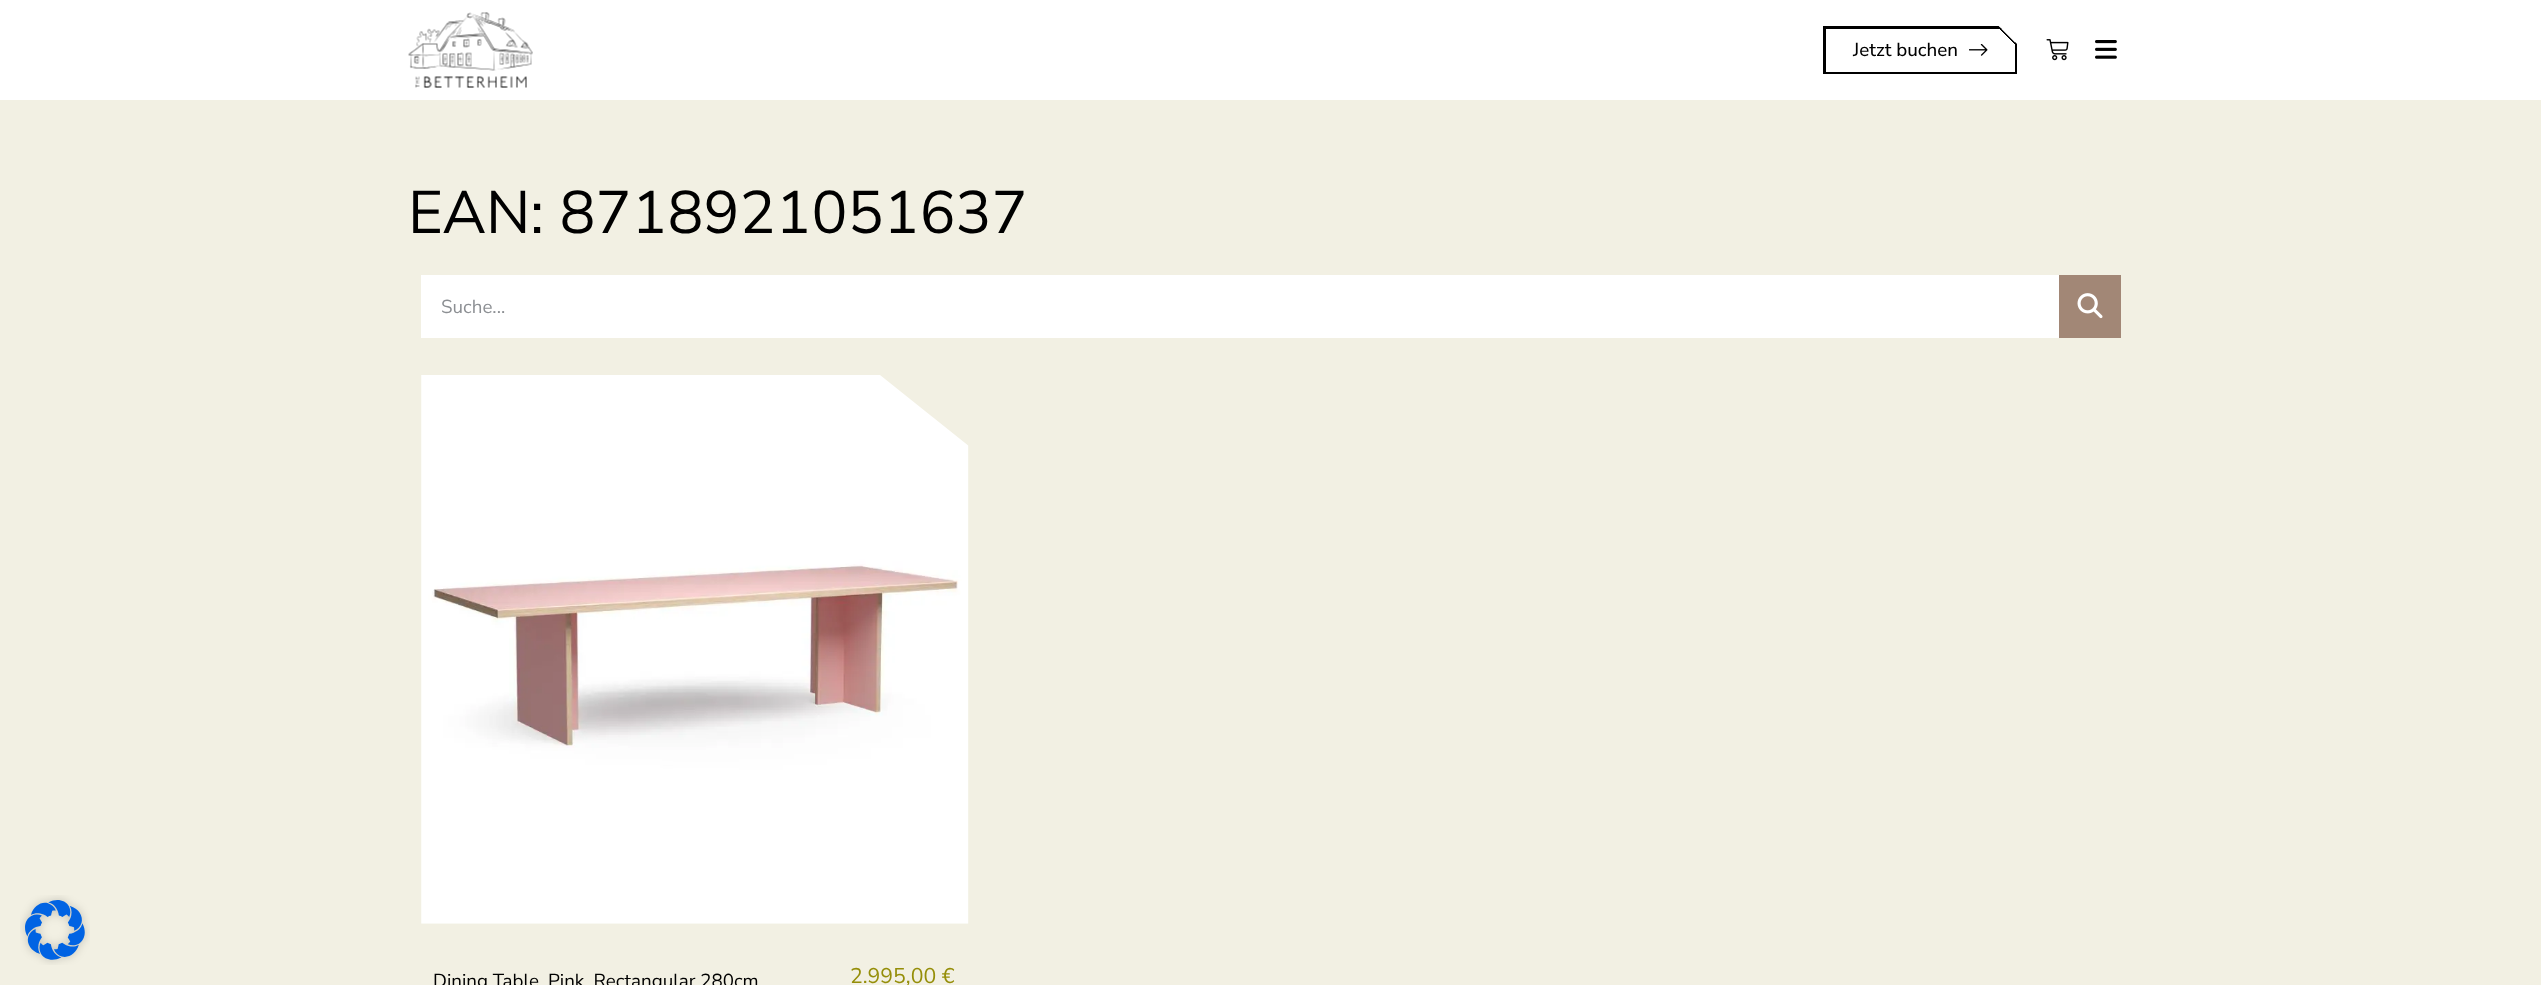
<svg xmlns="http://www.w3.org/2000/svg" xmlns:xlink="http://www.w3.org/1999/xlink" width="2541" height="985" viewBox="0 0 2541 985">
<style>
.cls-1{font:500 18.75px Nunito Sans;fill:#000000}
.cls-2{font:60px Nunito Sans;fill:#000000}
.cls-3{font:18.75px Nunito Sans;fill:#8c8f93}
.cls-4{font:18.75px Nunito Sans;fill:#000000}
.cls-5{font:21.25px Nunito Sans;fill:#958e09}
</style>
<defs>
<linearGradient id="g1" gradientUnits="userSpaceOnUse" x1="2018" y1="26" x2="1996" y2="48"><stop offset="0.5" stop-color="#000000"/><stop offset="0.5" stop-color="#ffffff"/></linearGradient>
</defs>
<rect width="100%" height="100%" fill="#ffffff"/>
<image xlink:href="image0.png" x="408" y="12" width="125" height="76"/>
<path fill="url(#g1)" d="M1995 26H1998.5L2017 44.5V49H1995Z"/>
<path fill="#000000" d="M1826 29H2002L1998 26H1823V74H2017V44L2015 42V72H1826Z"/>
<image xlink:href="image1.png" x="1969" y="44" width="19" height="12"/>
<image xlink:href="image2.png" x="2046" y="39" width="23" height="22"/>
<image xlink:href="image3.png" x="2095" y="40" width="22" height="19"/>
<rect fill="#f2f0e3" x="0" y="100" width="2541" height="885"/>
<image xlink:href="image4.png" x="20" y="895" width="70" height="70"/>
<rect fill="#ffffff" x="421" y="275" width="1638" height="63"/>
<rect fill="#a28776" x="2059" y="275" width="62" height="63"/>
<image xlink:href="image5.png" x="2077" y="293" width="26" height="26"/>
<image xlink:href="image6.png" x="421" y="375" width="548" height="549"/>
<text class="cls-1" x="1853" y="56">Jetzt buchen</text>
<text class="cls-2" x="408" y="233">EAN: 8718921051637</text>
<text class="cls-3" x="441" y="313">Suche...</text>
<text class="cls-4" x="433" y="987">Dining Table, Pink, Rectangular 280cm</text>
<text class="cls-5" x="850" y="983">2.995,00 €</text>
</svg>
